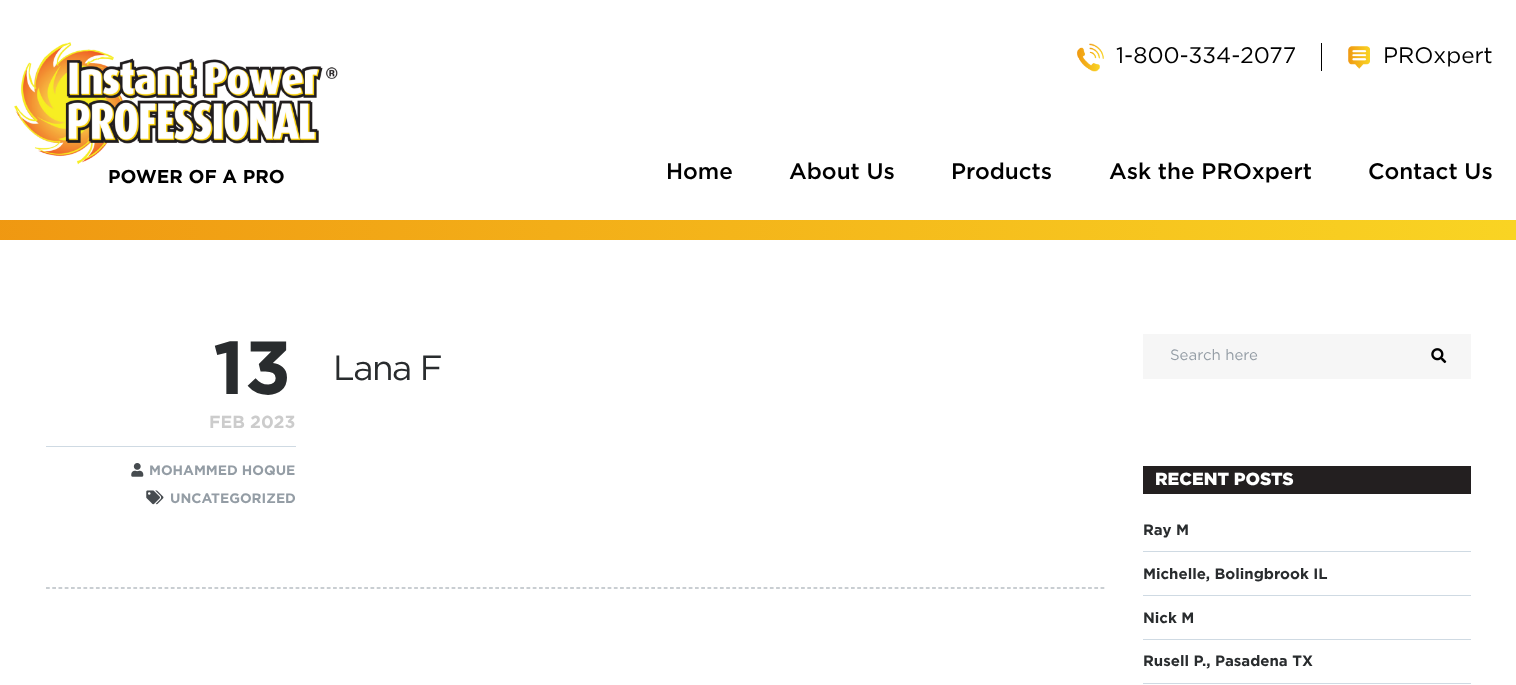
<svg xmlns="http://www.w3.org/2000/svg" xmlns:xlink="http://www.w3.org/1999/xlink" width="1516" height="685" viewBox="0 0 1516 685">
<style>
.cls-1{font:bold 18.75px Gotham;fill:#000000}
.cls-2{font:22.5px Gotham;fill:#000000}
.cls-3{font:500 22.5px Gotham;fill:#000000}
.cls-4{font:bold 75px Gotham;fill:#292c2e}
.cls-5{font:bold 17.5px Gotham;fill:#cccccc}
.cls-6{font:bold 13.75px Gotham;fill:#949da5}
.cls-7{font:35px Gotham;letter-spacing:-1.5px;fill:#292c2e}
.cls-8{font:15px Gotham;fill:#949da5}
.cls-9{font:900 17.5px Gotham;fill:#ffffff}
.cls-10{font:bold 15px Gotham;fill:#292c2e}
</style>
<defs>
<linearGradient id="g1" gradientUnits="userSpaceOnUse" x1="-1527" y1="230" x2="1516" y2="230"><stop offset="0" stop-color="#e65c00"/><stop offset="1" stop-color="#f9d423"/></linearGradient>
</defs>
<rect width="100%" height="100%" fill="#ffffff"/>
<image xlink:href="image0.png" x="14" y="42" width="324" height="123"/>
<image xlink:href="image1.png" x="1077" y="43" width="27" height="29"/>
<rect fill="#000000" x="1321" y="43" width="1" height="28"/>
<image xlink:href="image2.png" x="1348" y="46" width="22" height="23"/>
<rect fill="url(#g1)" x="0" y="220" width="1516" height="20"/>
<path fill="none" stroke="#949da5" stroke-width="1.2" stroke-dasharray="3.75 2.49" d="M46 588H1105"/>
<rect fill="#cfdae3" x="46" y="446" width="250" height="1"/>
<image xlink:href="image3.png" x="131" y="463" width="13" height="14"/>
<image xlink:href="image4.png" x="146" y="490" width="18" height="15"/>
<rect fill="#f6f6f6" x="1143" y="334" width="328" height="45"/>
<image xlink:href="image5.png" x="1431" y="348" width="16" height="16"/>
<rect fill="#231f20" x="1143" y="466" width="328" height="28"/>
<rect fill="#cfdae3" x="1143" y="551" width="328" height="1"/>
<rect fill="#cfdae3" x="1143" y="595" width="328" height="1"/>
<rect fill="#cfdae3" x="1143" y="639" width="328" height="1"/>
<rect fill="#cfdae3" x="1143" y="683" width="328" height="1"/>
<text class="cls-1" x="108" y="183">POWER OF A PRO</text>
<text class="cls-2" x="1116" y="63">1-800-334-2077</text>
<text class="cls-2" x="1383" y="63">PROxpert</text>
<text class="cls-3" x="666" y="179">Home</text>
<text class="cls-3" x="789" y="179">About Us</text>
<text class="cls-3" x="951" y="179">Products</text>
<text class="cls-3" x="1109" y="179">Ask the PROxpert</text>
<text class="cls-3" x="1368" y="179">Contact Us</text>
<text class="cls-4" x="213" y="394">13</text>
<text class="cls-5" x="209" y="428">FEB 2023</text>
<text class="cls-6" x="149" y="475">MOHAMMED HOQUE</text>
<text class="cls-6" x="170" y="503">UNCATEGORIZED</text>
<text class="cls-7" x="333" y="380">Lana F</text>
<text class="cls-8" x="1170" y="360">Search here</text>
<text class="cls-9" x="1155" y="485">RECENT POSTS</text>
<text class="cls-10" x="1143" y="535">Ray M</text>
<text class="cls-10" x="1143" y="579">Michelle, Bolingbrook IL</text>
<text class="cls-10" x="1143" y="623">Nick M</text>
<text class="cls-10" x="1143" y="666">Rusell P., Pasadena TX</text>
</svg>
